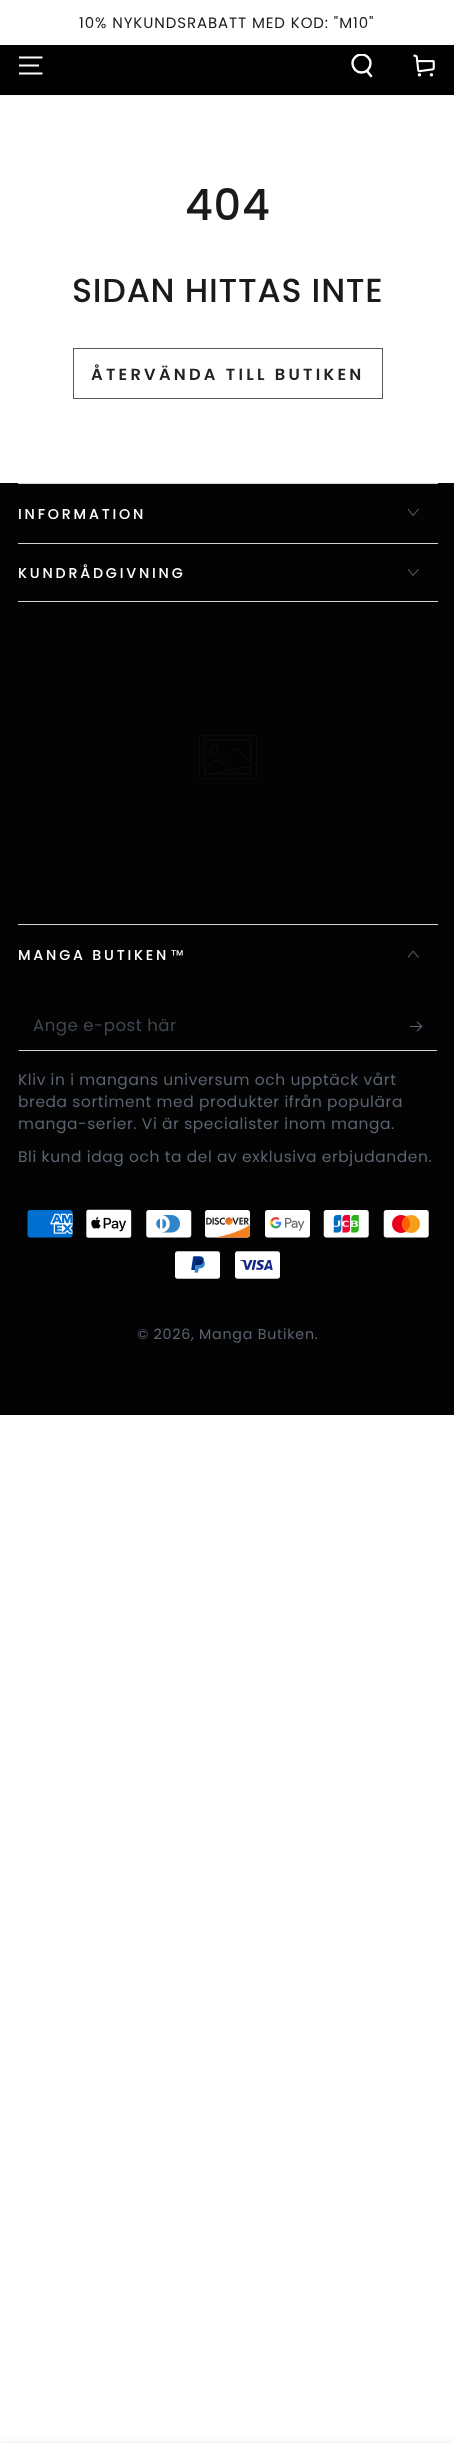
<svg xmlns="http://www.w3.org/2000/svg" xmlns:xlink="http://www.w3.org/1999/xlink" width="454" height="2443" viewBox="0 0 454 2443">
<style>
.cls-1{font:15px Poppins;letter-spacing:0.9px;fill:#1a1b18}
.cls-2{font:500 43px Poppins;letter-spacing:0.75px;fill:#1a1b18}
.cls-3{font:500 33.25px Poppins;letter-spacing:0.75px;fill:#1a1b18}
.cls-4{font:600 16.25px Poppins;letter-spacing:3.25px;fill:#212326}
.cls-5{font:500 14.25px Poppins;letter-spacing:2.8px;fill:#ffffff}
.cls-6{font:14.25px Liberation Sans;letter-spacing:2.8px;fill:#ffffff}
.cls-7{font:16.6px Poppins;letter-spacing:0.5px;fill:#414750}
.cls-8{font:15.45px Poppins;letter-spacing:0.6px;fill:#5b6471}
.cls-9{font:14.25px Poppins;letter-spacing:0.75px;fill:#5b6471}
</style>
<defs>
<clipPath id="clip1"><rect x="350" y="54" width="24" height="24"/></clipPath>
</defs>
<rect width="100%" height="100%" fill="#ffffff"/>
<rect fill="#f7f8fa" x="0" y="95" width="454" height="1"/>
<rect fill="#000000" x="0" y="45" width="454" height="50"/>
<path fill="none" stroke="#ffffff" stroke-width="2.2" d="M19 73.5H42.5M19 65.5H39M19 57.5H42.5"/>
<g clip-path="url(#clip1)">
<circle fill="none" stroke="#ffffff" stroke-width="2.4" cx="361.5" cy="63.5" r="9"/>
</g>
<path fill="none" stroke="#ffffff" stroke-width="2.4" stroke-linecap="round" d="M367 71L371 76"/>
<image xlink:href="image0.png" x="413" y="54" width="22" height="23"/>
<rect fill="none" stroke="#595959" x="73.5" y="348.5" width="309" height="50"/>
<rect fill="#030303" x="0" y="483" width="454" height="932"/>
<rect fill="#d2d5d9" x="18" y="483" width="420" height="1"/>
<rect fill="#d2d5d9" x="18" y="543" width="420" height="1"/>
<image xlink:href="image1.png" x="408" y="509" width="11" height="7"/>
<rect fill="#d2d5d9" x="18" y="601" width="420" height="1"/>
<image xlink:href="image1.png" x="408" y="569" width="11" height="7"/>
<rect fill="#d2d5d9" x="18" y="924" width="420" height="1"/>
<image xlink:href="image2.png" x="199" y="735" width="58" height="44"/>
<image xlink:href="image3.png" x="408" y="950" width="11" height="8"/>
<path fill="#d2d5d9" d="M438 1051H18L19 1050H436Z"/>
<image xlink:href="image4.png" x="410" y="1021" width="13" height="11"/>
<image xlink:href="image5.png" x="27" y="1210" width="46" height="28"/>
<image xlink:href="image6.png" x="86" y="1209" width="46" height="29"/>
<image xlink:href="image7.png" x="146" y="1210" width="46" height="28"/>
<image xlink:href="image8.png" x="205" y="1210" width="46" height="28"/>
<image xlink:href="image9.png" x="265" y="1210" width="45" height="28"/>
<image xlink:href="image10.png" x="323" y="1210" width="46" height="28"/>
<image xlink:href="image11.png" x="383" y="1210" width="46" height="28"/>
<image xlink:href="image12.png" x="175" y="1251" width="45" height="28"/>
<image xlink:href="image13.png" x="235" y="1251" width="45" height="28"/>
<rect fill="#1a1b18" fill-opacity="0.15" filter="blur(5px)" x="0" y="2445" width="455" height="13"/>
<text class="cls-1" x="79" y="28">10% NYKUNDSRABATT MED KOD: "M10"</text>
<text class="cls-2" x="185" y="220">404</text>
<text class="cls-3" x="72" y="302">SIDAN HITTAS INTE</text>
<text class="cls-4" x="91" y="380">ÅTERVÄNDA TILL BUTIKEN</text>
<text class="cls-5" x="18" y="519">INFORMATION</text>
<text class="cls-5" x="18" y="578">KUNDRÅDGIVNING</text>
<text class="cls-5" x="18" y="960">MANGA BUTIKEN</text>
<text class="cls-6" x="170" y="960">™</text>
<text class="cls-7" x="33" y="1031">Ange e-post här</text>
<text class="cls-8"><tspan x="18" y="1085">Kliv in i mangans universum och upptäck vårt</tspan><tspan x="18" y="1107">breda sortiment med produkter ifrån populära</tspan><tspan x="18" y="1129">manga-serier. Vi är specialister inom manga.</tspan></text>
<text class="cls-8" x="18" y="1162">Bli kund idag och ta del av exklusiva erbjudanden.</text>
<text class="cls-9" x="137" y="1339">© 2026, Manga Butiken.</text>
</svg>
